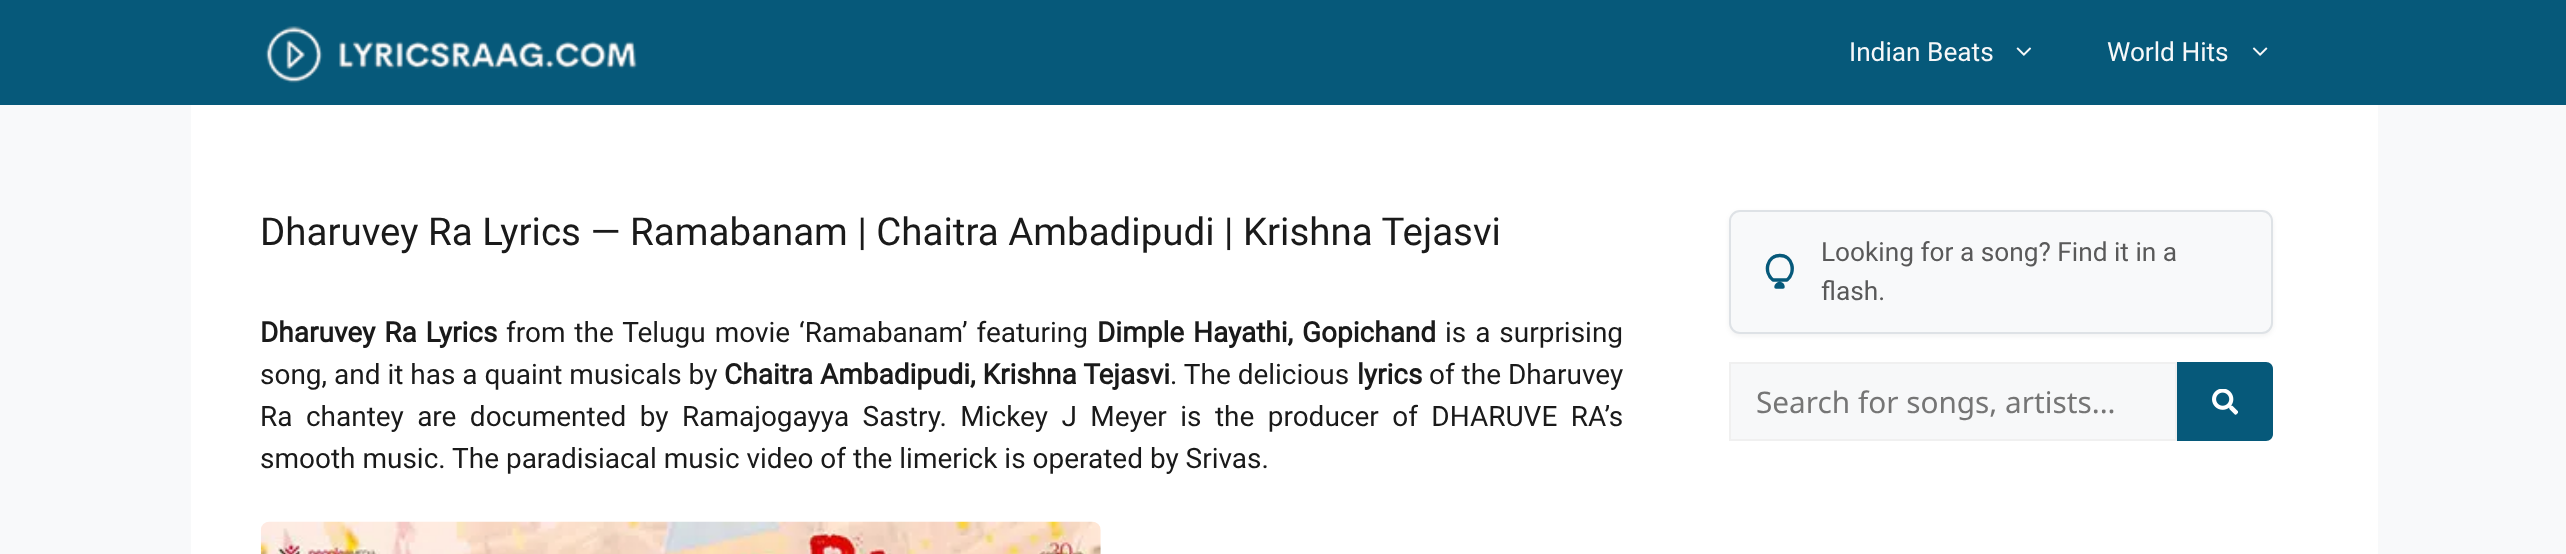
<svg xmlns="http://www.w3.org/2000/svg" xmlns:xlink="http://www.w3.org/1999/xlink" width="2566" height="554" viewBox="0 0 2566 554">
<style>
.cls-1{font:26.25px Roboto;fill:#f7f8f9}
.cls-2{font:38.5px Roboto;fill:#1a1a1a}
.cls-3{font:bold 28px Roboto;fill:#1a1a1a}
.cls-4{font:28px Roboto;fill:#1a1a1a}
.cls-5{font:26.25px Roboto;fill:#595959}
.cls-6{font:29.75px Noto Sans;fill:#757575}
</style>
<rect width="100%" height="100%" fill="#f8f9fa"/>
<rect fill="#06597a" x="0" y="0" width="2566" height="105"/>
<image xlink:href="image0.png" x="265" y="26" width="373" height="57"/>
<image xlink:href="image1.png" x="2016" y="47" width="16" height="9"/>
<image xlink:href="image2.png" x="2252" y="47" width="16" height="9"/>
<rect fill="#ffffff" x="191" y="105" width="2187" height="449"/>
<image xlink:href="image3.png" x="260" y="521" width="841" height="33"/>
<rect fill="#000000" fill-opacity="0.05" filter="blur(2.5px)" x="1729" y="212" width="544" height="124" rx="11"/>
<rect fill="#f8f9fa" stroke="#dee2e6" stroke-width="2" x="1730" y="211" width="542" height="122" rx="10"/>
<path fill="none" stroke="#06597a" stroke-width="3.5" stroke-linecap="round" stroke-linejoin="round" d="M1780 255.5C1766.5 255.5 1763.5 272.5 1773 280H1787C1796 272.5 1793 255.5 1780 255.5ZM1780 283.5C1778 283.5 1776 285 1776 287H1783C1783 285 1781.5 283.5 1780 283.5Z"/>
<rect fill="#f7f8f9" stroke="#f0f0f0" stroke-width="2" x="1730" y="363" width="446" height="77"/>
<path fill="#06597a" d="M2177 362H2266C2270 362 2273 365 2273 369V434C2273 438 2270 441 2266 441H2177Z"/>
<image xlink:href="image4.png" x="2212" y="389" width="26" height="26"/>
<text class="cls-1" x="1849" y="61">Indian Beats</text>
<text class="cls-1" x="2107" y="61">World Hits</text>
<text class="cls-2" x="260" y="245">Dharuvey Ra Lyrics — Ramabanam | Chaitra Ambadipudi | Krishna Tejasvi</text>
<text class="cls-3" x="260" y="342" word-spacing="2">Dharuvey Ra Lyrics</text>
<text class="cls-4" x="506" y="342" word-spacing="2">from the Telugu movie ‘Ramabanam’ featuring</text>
<text class="cls-3" x="1097" y="342" word-spacing="2">Dimple Hayathi, Gopichand</text>
<text class="cls-4" x="1445" y="342" word-spacing="2">is a surprising</text>
<text class="cls-4" x="260" y="384">song, and it has a quaint musicals by</text>
<text class="cls-3" x="724" y="384">Chaitra Ambadipudi, Krishna Tejasvi</text>
<text class="cls-4" x="1170" y="384">. The delicious</text>
<text class="cls-3" x="1357" y="384">lyrics</text>
<text class="cls-4" x="1429" y="384">of the Dharuvey</text>
<text class="cls-4"><tspan x="260" y="426" word-spacing="6.5">Ra chantey are documented by Ramajogayya Sastry. Mickey J Meyer is the producer of DHARUVE RA’s</tspan><tspan x="260" y="468">smooth music. The paradisiacal music video of the limerick is operated by Srivas.</tspan></text>
<text class="cls-5"><tspan x="1821" y="261">Looking for a song? Find it in a</tspan><tspan x="1821" y="300">flash.</tspan></text>
<text class="cls-6" x="1756" y="413">Search for songs, artists...</text>
</svg>
